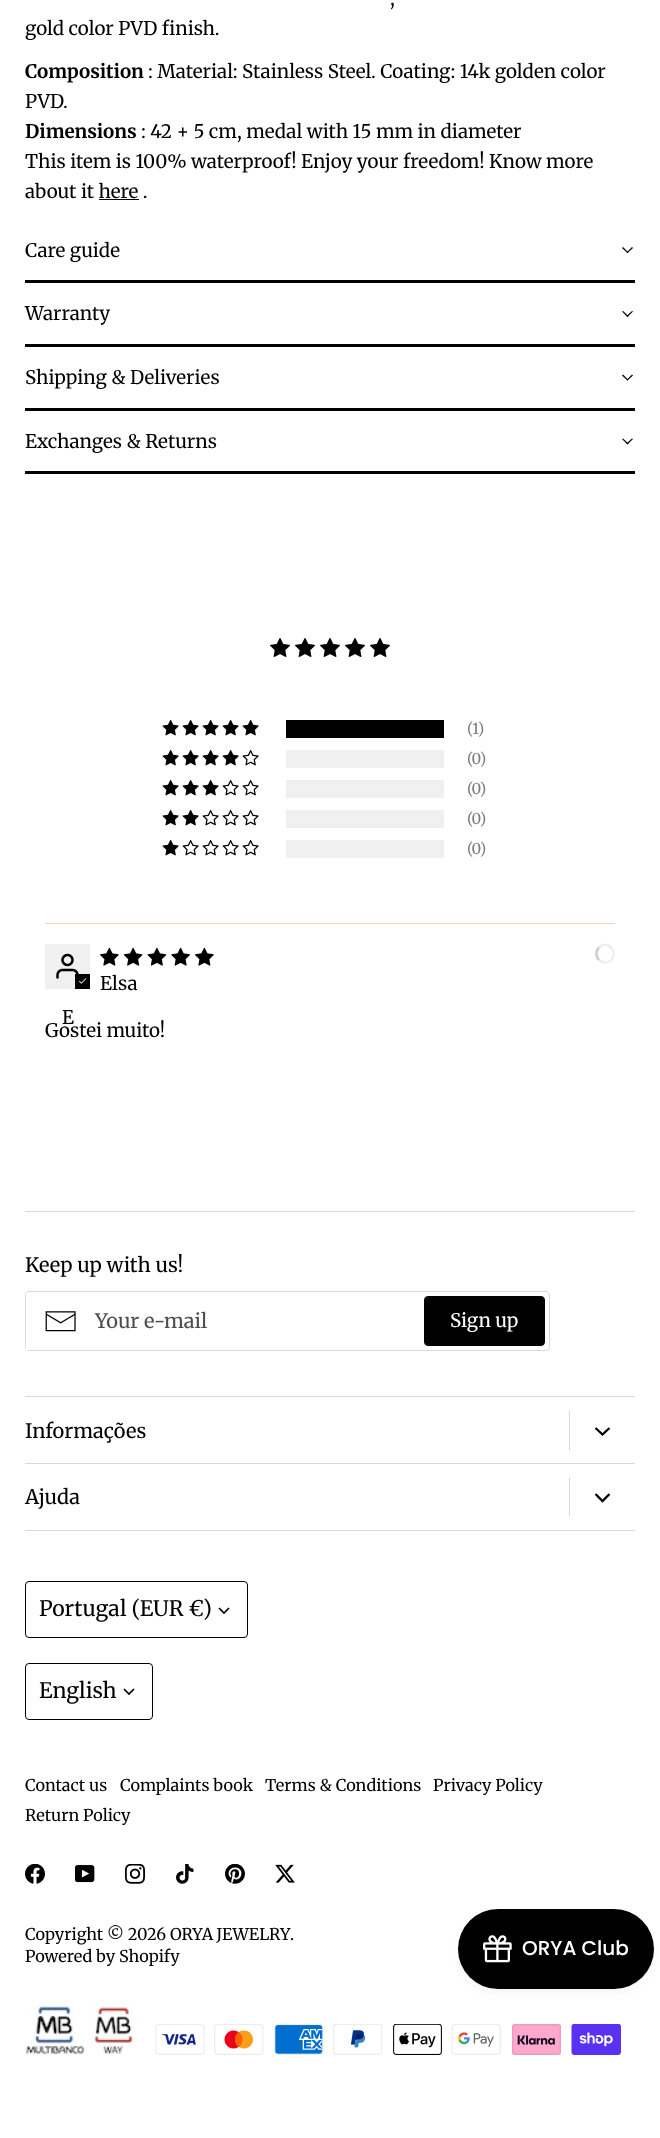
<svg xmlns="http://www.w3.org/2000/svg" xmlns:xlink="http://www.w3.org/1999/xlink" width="660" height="2138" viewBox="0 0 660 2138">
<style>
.cls-1{font:18.75px Merriweather;fill:#000000}
.cls-2{font:bold 18.75px Merriweather;fill:#000000}
.cls-3{font:15px Merriweather;fill:#7b7b7b}
.cls-4{font:20px Merriweather;fill:#000000}
.cls-5{font:20px Merriweather;fill:#4d4d4d}
.cls-6{font:18.75px Merriweather;fill:#ffffff}
.cls-7{font:21.25px Merriweather;fill:#000000}
.cls-8{font:16.25px Merriweather;fill:#000000}
.cls-9{font:500 20px Poppins;fill:#ffffff}
</style>
<rect width="100%" height="100%" fill="#ffffff"/>
<rect fill="#000000" x="99" y="199" width="40" height="1"/>
<rect fill="#000000" x="25" y="280" width="610" height="3"/>
<path fill="#000000" d="M632 247L633 248L627.5 253L626.5 252.5Z"/>
<path fill="#000000" d="M623 247L628.5 252.5L627.5 253L622 248Z"/>
<rect fill="#000000" x="25" y="344" width="610" height="3"/>
<path fill="#000000" d="M632 311L633 311.5L627.5 317L626.5 316Z"/>
<path fill="#000000" d="M623 311L628.5 316L627.5 317L622 311.5Z"/>
<rect fill="#000000" x="25" y="408" width="610" height="3"/>
<path fill="#000000" d="M632 374.5L633 375.5L627.5 380.5L626.5 380Z"/>
<path fill="#000000" d="M623 374.5L628.5 380L627.5 380.5L622 375.5Z"/>
<rect fill="#000000" x="25" y="471" width="610" height="3"/>
<path fill="#000000" d="M632 438.5L633 439L627.5 444.5L626.5 443.5Z"/>
<path fill="#000000" d="M623 438.5L628.5 443.5L627.5 444.5L622 439Z"/>
<image xlink:href="image0.png" x="270" y="638" width="20" height="19"/>
<image xlink:href="image0.png" x="295" y="638" width="20" height="19"/>
<image xlink:href="image0.png" x="320" y="638" width="20" height="19"/>
<image xlink:href="image0.png" x="345" y="638" width="20" height="19"/>
<image xlink:href="image0.png" x="370" y="638" width="20" height="19"/>
<image xlink:href="image1.png" x="162" y="720" width="17" height="16"/>
<image xlink:href="image1.png" x="182" y="720" width="17" height="16"/>
<image xlink:href="image1.png" x="202" y="720" width="17" height="16"/>
<image xlink:href="image1.png" x="222" y="720" width="17" height="16"/>
<image xlink:href="image1.png" x="242" y="720" width="17" height="16"/>
<rect fill="#000000" x="286" y="720" width="158" height="18"/>
<image xlink:href="image1.png" x="162" y="750" width="17" height="16"/>
<image xlink:href="image1.png" x="182" y="750" width="17" height="16"/>
<image xlink:href="image1.png" x="202" y="750" width="17" height="16"/>
<image xlink:href="image1.png" x="222" y="750" width="17" height="16"/>
<image xlink:href="image2.png" x="242" y="750" width="17" height="16"/>
<rect fill="#f0f0f0" x="286" y="750" width="158" height="18"/>
<image xlink:href="image1.png" x="162" y="780" width="17" height="16"/>
<image xlink:href="image1.png" x="182" y="780" width="17" height="16"/>
<image xlink:href="image1.png" x="202" y="780" width="17" height="16"/>
<image xlink:href="image2.png" x="222" y="780" width="17" height="16"/>
<image xlink:href="image2.png" x="242" y="780" width="17" height="16"/>
<rect fill="#f0f0f0" x="286" y="780" width="158" height="18"/>
<image xlink:href="image1.png" x="162" y="810" width="17" height="16"/>
<image xlink:href="image1.png" x="182" y="810" width="17" height="16"/>
<image xlink:href="image2.png" x="202" y="810" width="17" height="16"/>
<image xlink:href="image2.png" x="222" y="810" width="17" height="16"/>
<image xlink:href="image2.png" x="242" y="810" width="17" height="16"/>
<rect fill="#f0f0f0" x="286" y="810" width="158" height="18"/>
<image xlink:href="image1.png" x="162" y="840" width="17" height="16"/>
<image xlink:href="image2.png" x="182" y="840" width="17" height="16"/>
<image xlink:href="image2.png" x="202" y="840" width="17" height="16"/>
<image xlink:href="image2.png" x="222" y="840" width="17" height="16"/>
<image xlink:href="image2.png" x="242" y="840" width="17" height="16"/>
<rect fill="#f0f0f0" x="286" y="840" width="158" height="18"/>
<rect fill="#efd3c0" x="45" y="923" width="570" height="1"/>
<image xlink:href="image3.png" x="100" y="947" width="19" height="19"/>
<image xlink:href="image4.png" x="123" y="947" width="20" height="19"/>
<image xlink:href="image5.png" x="147" y="947" width="20" height="19"/>
<image xlink:href="image6.png" x="171" y="947" width="19" height="19"/>
<image xlink:href="image3.png" x="195" y="947" width="19" height="19"/>
<path fill="none" stroke="#eeeeee" stroke-width="2.5" d="M599 947.5C601 945.5 604 944.5 606.5 945C617 947 615.5 962.5 605 962.5C602.5 962.5 600.5 961.5 599 960"/>
<path fill="none" stroke="#cccccc" stroke-width="2.5" d="M599 960C595.5 956.5 595.5 951 599 947.5"/>
<rect fill="#f0f0f0" x="45" y="944" width="45" height="45"/>
<image xlink:href="image7.png" x="56" y="953" width="23" height="26"/>
<rect fill="#000000" x="75" y="974" width="15" height="15"/>
<image xlink:href="image8.png" x="79" y="978" width="8" height="6"/>
<rect fill="#d9d9d9" x="25" y="1211" width="610" height="1"/>
<rect fill="#d9d9d9" x="25" y="1396" width="610" height="1"/>
<rect fill="none" stroke="#d9d9d9" x="25.5" y="1291.5" width="524" height="59" rx="3.5"/>
<image xlink:href="image9.png" x="45" y="1311" width="31" height="21"/>
<rect fill="#ffffff" x="26" y="1293" width="3" height="57"/>
<rect fill="#000000" stroke="#000000" x="424.5" y="1296.5" width="120" height="49" rx="3.5"/>
<rect fill="#d9d9d9" x="25" y="1463" width="610" height="1"/>
<rect fill="#d9d9d9" x="569" y="1411" width="1" height="39"/>
<path fill="none" stroke="#000000" stroke-width="2.3" d="M595.5 1428L602.5 1434.5L609.5 1428"/>
<rect fill="#d9d9d9" x="25" y="1530" width="610" height="1"/>
<rect fill="#d9d9d9" x="569" y="1478" width="1" height="38"/>
<path fill="none" stroke="#000000" stroke-width="2.3" d="M595.5 1494L602.5 1501L609.5 1494"/>
<rect fill="none" stroke="#000000" x="25.5" y="1581.5" width="222" height="56" rx="3.5"/>
<path fill="none" stroke="#000000" stroke-width="1.7" d="M219 1608L224 1613L229 1608"/>
<rect fill="none" stroke="#000000" x="25.5" y="1663.5" width="127" height="56" rx="3.5"/>
<path fill="none" stroke="#000000" stroke-width="1.7" d="M124 1689L129 1694L134 1689"/>
<image xlink:href="image10.png" x="25" y="1864" width="20" height="20"/>
<image xlink:href="image11.png" x="75" y="1865" width="20" height="18"/>
<image xlink:href="image12.png" x="125" y="1864" width="20" height="20"/>
<image xlink:href="image13.png" x="176" y="1864" width="18" height="20"/>
<image xlink:href="image14.png" x="225" y="1864" width="20" height="20"/>
<image xlink:href="image15.png" x="275" y="1864" width="20" height="19"/>
<image xlink:href="image16.png" x="26" y="2006" width="112" height="49"/>
<image xlink:href="image17.png" x="155" y="2024" width="50" height="31"/>
<image xlink:href="image18.png" x="214" y="2024" width="50" height="31"/>
<image xlink:href="image19.png" x="274" y="2024" width="50" height="31"/>
<image xlink:href="image20.png" x="333" y="2024" width="49" height="31"/>
<image xlink:href="image21.png" x="393" y="2024" width="49" height="31"/>
<image xlink:href="image22.png" x="451" y="2024" width="50" height="31"/>
<image xlink:href="image23.png" x="512" y="2024" width="49" height="31"/>
<image xlink:href="image24.png" x="571" y="2024" width="50" height="31"/>
<rect fill="#444444" fill-opacity="0.08" filter="blur(5px)" x="460" y="1916" width="191" height="75" rx="37.5"/>
<rect fill="#000000" x="458" y="1909" width="196" height="80" rx="40"/>
<image xlink:href="image25.png" x="483" y="1935" width="29" height="28"/>
<text class="cls-1" x="390" y="5">,</text>
<text class="cls-1" x="25" y="35">gold color PVD finish.</text>
<text class="cls-2" x="25" y="78">Composition</text>
<text class="cls-1" x="148" y="78">: Material: Stainless Steel. Coating: 14k golden color</text>
<text class="cls-1" x="25" y="108">PVD.</text>
<text class="cls-2" x="25" y="138">Dimensions</text>
<text class="cls-1" x="141" y="138">: 42 + 5 cm, medal with 15 mm in diameter</text>
<text class="cls-1"><tspan x="25" y="168">This item is 100% waterproof! Enjoy your freedom! Know more</tspan><tspan x="25" y="198">about it here .</tspan></text>
<text class="cls-1" x="25" y="257">Care guide</text>
<text class="cls-1" x="25" y="320">Warranty</text>
<text class="cls-1" x="25" y="384">Shipping &amp; Deliveries</text>
<text class="cls-1" x="25" y="448">Exchanges &amp; Returns</text>
<text class="cls-3" x="467" y="734">(1)</text>
<text class="cls-3" x="467" y="764">(0)</text>
<text class="cls-3" x="467" y="794">(0)</text>
<text class="cls-3" x="467" y="824">(0)</text>
<text class="cls-3" x="467" y="854">(0)</text>
<text class="cls-1" x="100" y="990">Elsa</text>
<text class="cls-1" x="62" y="1024">E</text>
<text class="cls-1" x="45" y="1037">Gostei muito!</text>
<text class="cls-4" x="25" y="1272">Keep up with us!</text>
<text class="cls-5" x="95" y="1328">Your e-mail</text>
<text class="cls-6" x="450" y="1327">Sign up</text>
<text class="cls-4" x="25" y="1438">Informações</text>
<text class="cls-4" x="25" y="1504">Ajuda</text>
<text class="cls-7" x="39" y="1616">Portugal (EUR €)</text>
<text class="cls-7" x="39" y="1698">English</text>
<text class="cls-8" x="25" y="1791">Contact us</text>
<text class="cls-8" x="120" y="1791">Complaints book</text>
<text class="cls-8" x="265" y="1791">Terms &amp; Conditions</text>
<text class="cls-8" x="433" y="1791">Privacy Policy</text>
<text class="cls-8" x="25" y="1821">Return Policy</text>
<text class="cls-8" x="25" y="1940">Copyright © 2026</text>
<text class="cls-8" x="170" y="1940" word-spacing="-1">ORYA JEWELRY</text>
<text class="cls-8" x="290" y="1940">.</text>
<text class="cls-8" x="25" y="1962">Powered by Shopify</text>
<text class="cls-9" x="522" y="1955">ORYA Club</text>
</svg>
